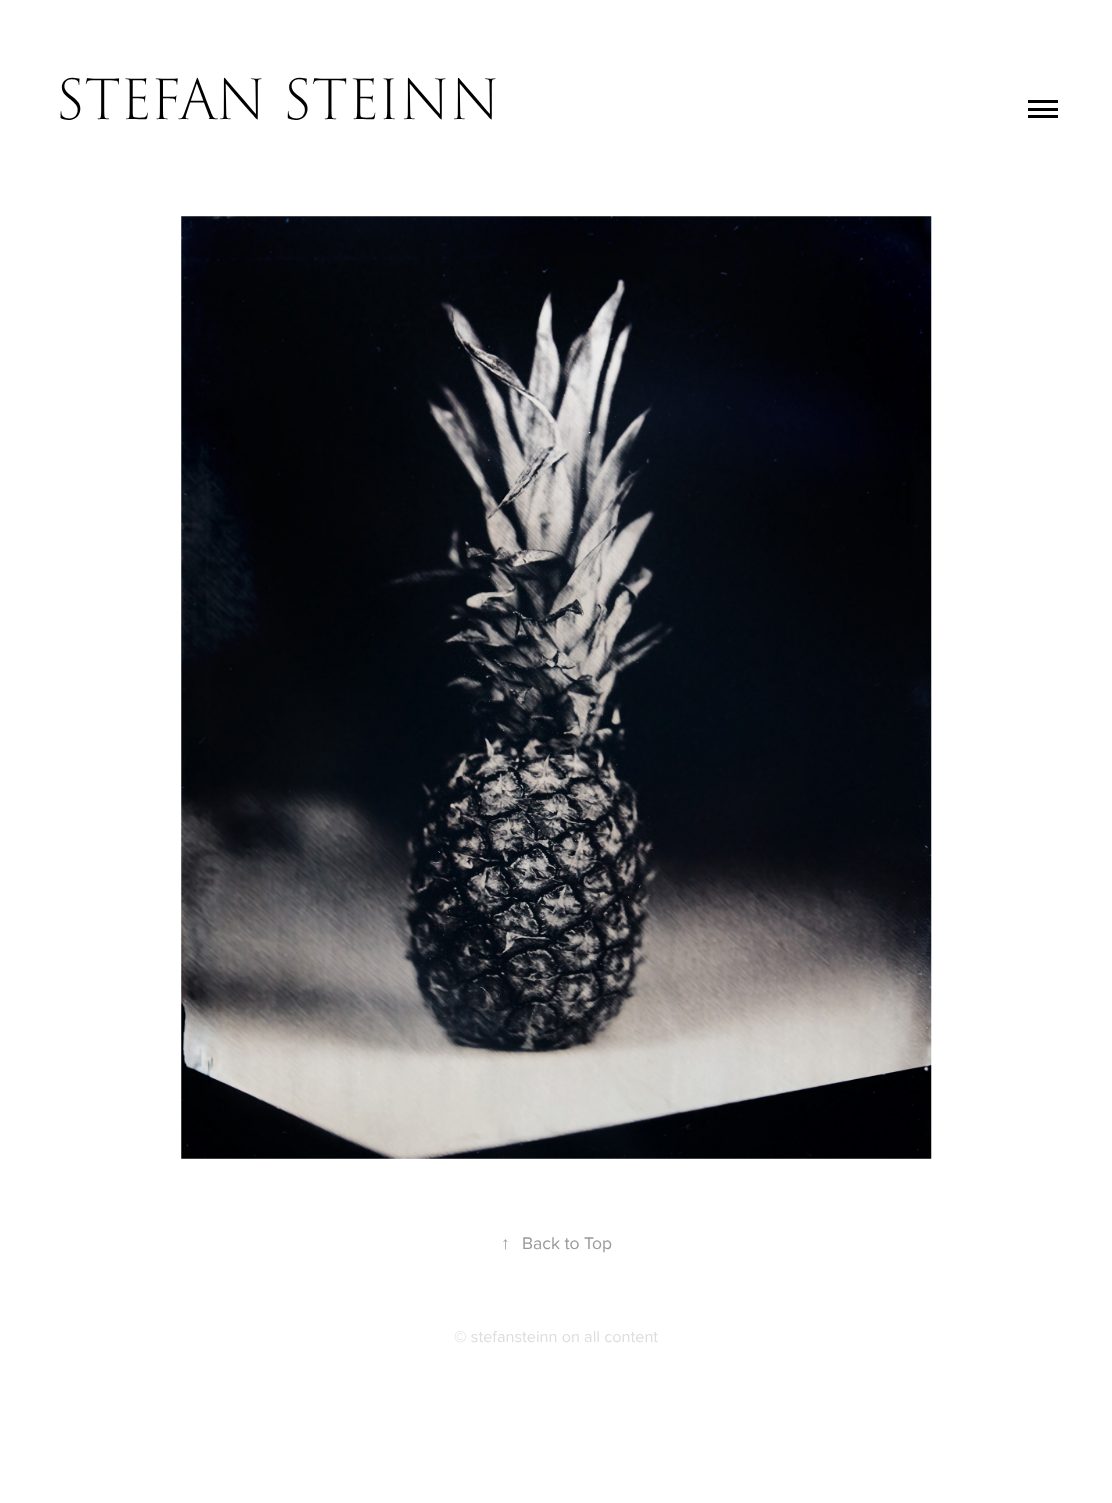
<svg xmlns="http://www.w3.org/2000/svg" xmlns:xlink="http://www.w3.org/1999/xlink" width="1112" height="1503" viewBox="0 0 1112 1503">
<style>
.cls-1{font:300 53.75px 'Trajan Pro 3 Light';fill:#000000}
.cls-2{font:17.5px Liberation Serif;fill:#999999}
.cls-3{font:17.5px Proxima Nova;fill:#999999}
.cls-4{font:16.25px Proxima Nova;fill:#dddddd}
</style>
<rect width="100%" height="100%" fill="#ffffff"/>
<rect fill="#000000" x="1028" y="100" width="30" height="3"/>
<rect fill="#000000" x="1028" y="108" width="30" height="3"/>
<rect fill="#000000" x="1028" y="115" width="30" height="3"/>
<image xlink:href="image0.png" x="181" y="216" width="751" height="943"/>
<text class="cls-1" x="56" y="119">STEFAN STEINN</text>
<text class="cls-2" x="501" y="1249">↑</text>
<text class="cls-3" x="522" y="1249">Back to Top</text>
<text class="cls-4" x="454" y="1342">© stefansteinn on all content</text>
</svg>
